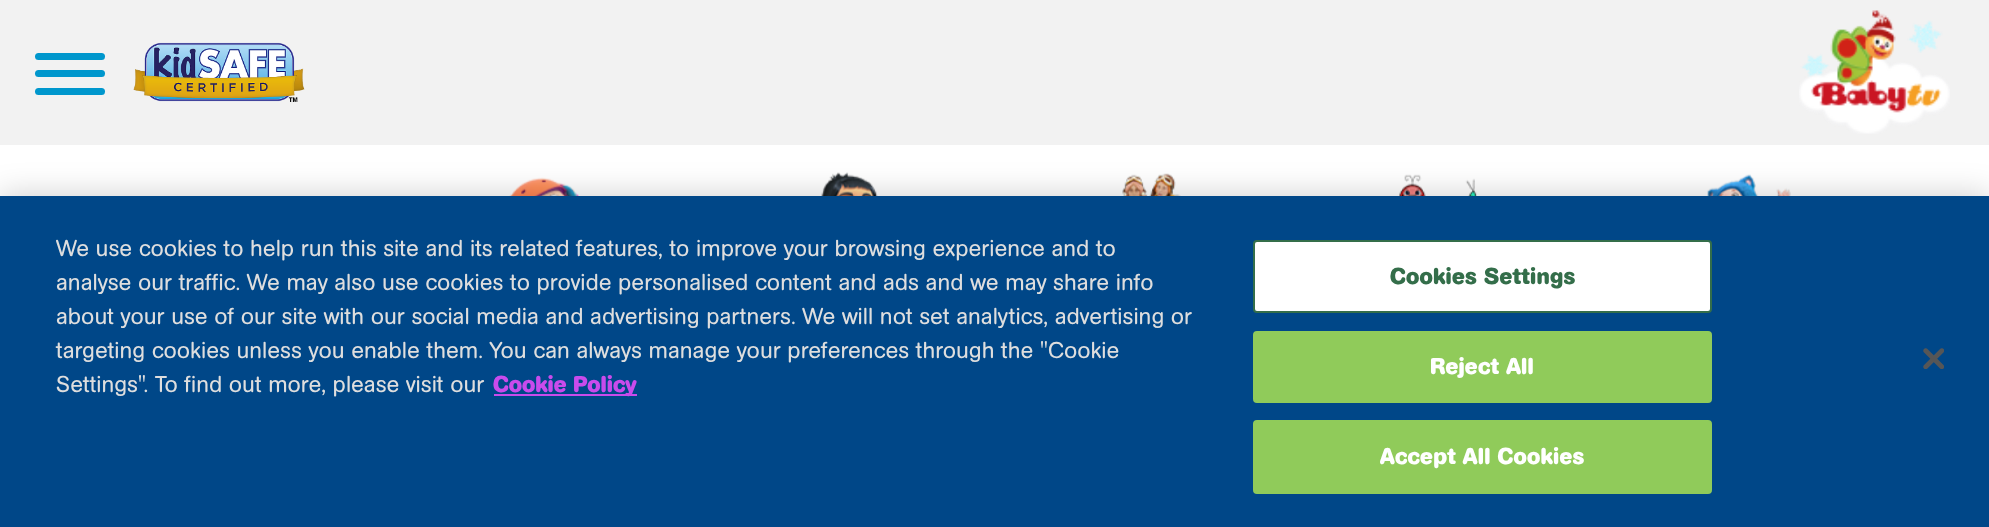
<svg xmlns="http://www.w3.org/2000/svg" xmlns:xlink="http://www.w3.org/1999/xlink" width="1989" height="527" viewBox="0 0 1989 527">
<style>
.cls-1{font:22.75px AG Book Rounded;fill:#dedede}
.cls-2{font:bold 22.75px AG Book Rounded;fill:#c94bec}
.cls-3{font:bold 22.75px AG Book Rounded;letter-spacing:0.25px;fill:#346e4a}
.cls-4{font:bold 22.75px AG Book Rounded;letter-spacing:0.25px;fill:#ffffff}
</style>
<rect width="100%" height="100%" fill="#ffffff"/>
<rect fill="#f2f2f2" x="0" y="0" width="1989" height="145"/>
<rect fill="#0097cd" x="35" y="53" width="70" height="7" rx="3.5"/>
<rect fill="#0097cd" x="35" y="70" width="70" height="7" rx="3.5"/>
<rect fill="#0097cd" x="35" y="88" width="70" height="7" rx="3.5"/>
<image xlink:href="image0.png" x="133" y="42" width="172" height="60"/>
<image xlink:href="image1.png" x="1799" y="10" width="151" height="124"/>
<image xlink:href="image2.png" x="509" y="177" width="70" height="19"/>
<image xlink:href="image3.png" x="821" y="172" width="57" height="24"/>
<image xlink:href="image4.png" x="1122" y="173" width="59" height="23"/>
<image xlink:href="image5.png" x="1399" y="174" width="78" height="22"/>
<image xlink:href="image6.png" x="1707" y="174" width="84" height="22"/>
<rect fill="#000000" fill-opacity="0.2" filter="blur(16px)" x="0" y="196" width="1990" height="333"/>
<rect fill="#004788" x="0" y="196" width="1989" height="331"/>
<rect fill="#c94bec" x="494" y="394" width="143" height="2"/>
<rect fill="#ffffff" stroke="#346e4a" stroke-width="2" x="1254" y="241" width="457" height="71" rx="3"/>
<rect fill="#90cb5a" stroke="#90cb5a" stroke-width="2" x="1254" y="332" width="457" height="70" rx="3"/>
<rect fill="#90cb5a" stroke="#90cb5a" stroke-width="2" x="1254" y="421" width="457" height="72" rx="3"/>
<image xlink:href="image7.png" x="1923" y="348" width="21" height="21"/>
<text class="cls-1"><tspan x="56" y="256">We use cookies to help run this site and its related features, to improve your browsing experience and to</tspan><tspan x="56" y="290">analyse our traffic. We may also use cookies to provide personalised content and ads and we may share info</tspan><tspan x="56" y="324">about your use of our site with our social media and advertising partners. We will not set analytics, advertising or</tspan><tspan x="56" y="358">targeting cookies unless you enable them. You can always manage your preferences through the "Cookie</tspan><tspan x="56" y="392">Settings". To find out more, please visit our</tspan></text>
<text class="cls-2" x="493" y="392">Cookie Policy</text>
<text class="cls-3" x="1390" y="284">Cookies Settings</text>
<text class="cls-4" x="1430" y="374">Reject All</text>
<text class="cls-4" x="1380" y="464">Accept All Cookies</text>
</svg>
